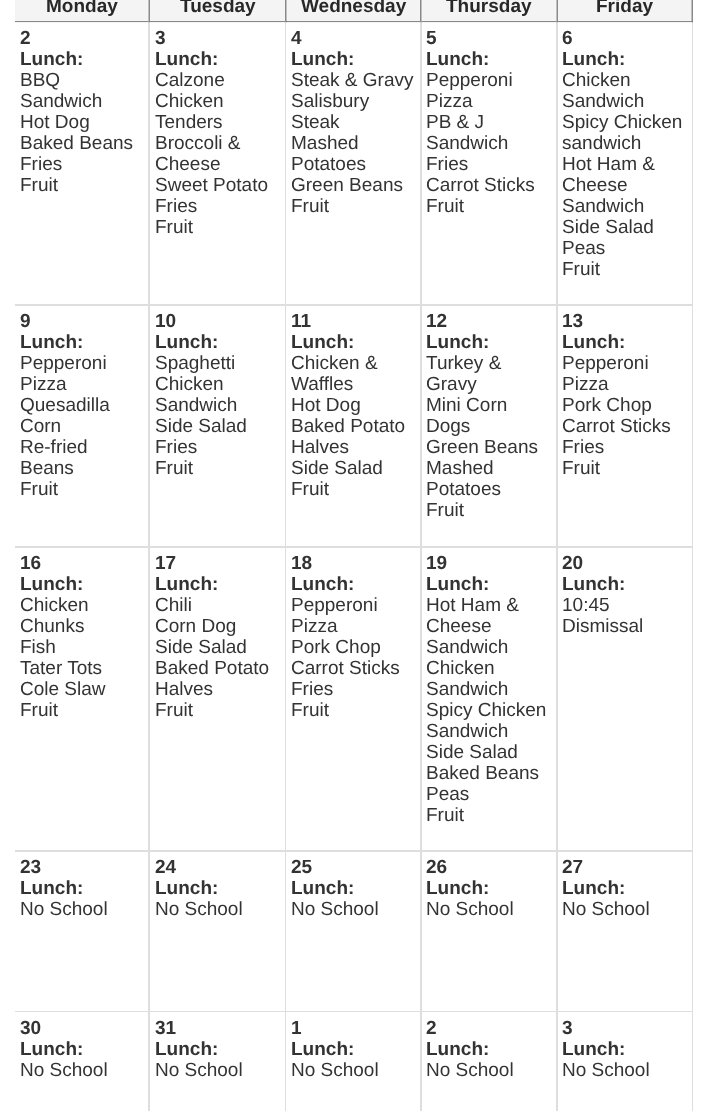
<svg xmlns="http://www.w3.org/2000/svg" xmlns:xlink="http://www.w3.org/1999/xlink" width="708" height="1111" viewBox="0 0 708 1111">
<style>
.cls-1{font:bold 19px Liberation Sans;fill:#282828}
.cls-2{font:bold 19px Liberation Sans;fill:#333333}
.cls-3{font:19px Liberation Sans;fill:#333333}
</style>
<rect width="100%" height="100%" fill="#ffffff"/>
<rect fill="#f4f4f4" x="15" y="0" width="678" height="23"/>
<path fill="#898989" d="M150-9V22.5L148.5 21V-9Z"/>
<path fill="#000000" fill-opacity="0.44" d="M150 22H15V21H148Z"/>
<path fill="#898989" d="M286.5-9V22.5L285 21V-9Z"/>
<path fill="#000000" fill-opacity="0.44" d="M286 22H150V21H285Z"/>
<path fill="#898989" d="M421.5-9V22.5L420 21V-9Z"/>
<path fill="#000000" fill-opacity="0.44" d="M422 22H286V21H420Z"/>
<path fill="#898989" d="M558-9V22.5L556.5 21V-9Z"/>
<path fill="#000000" fill-opacity="0.44" d="M558 22H422V21H556Z"/>
<path fill="#898989" d="M693-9V22.5L691.5 21V-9Z"/>
<path fill="#000000" fill-opacity="0.44" d="M693 22H558V21H692Z"/>
<path fill="#000000" fill-opacity="0.13" d="M150 22V306L148 304V22Z"/>
<path fill="#000000" fill-opacity="0.13" d="M150 306H15V304H148Z"/>
<path fill="#000000" fill-opacity="0.13" d="M286 22V306L285 304V22Z"/>
<path fill="#000000" fill-opacity="0.13" d="M286 306H150V304H285Z"/>
<path fill="#000000" fill-opacity="0.13" d="M422 22V306L420 304V22Z"/>
<path fill="#000000" fill-opacity="0.13" d="M422 306H286V304H420Z"/>
<path fill="#000000" fill-opacity="0.13" d="M558 22V306L556 304V22Z"/>
<path fill="#000000" fill-opacity="0.13" d="M558 306H422V304H556Z"/>
<path fill="#000000" fill-opacity="0.13" d="M693 22V306L692 304V22Z"/>
<path fill="#000000" fill-opacity="0.13" d="M693 306H558V304H692Z"/>
<path fill="#dedede" d="M150 306V548L148 546V306Z"/>
<path fill="#000000" fill-opacity="0.13" d="M150 548H15V546H148Z"/>
<path fill="#dedede" d="M286 306V548L285 546V306Z"/>
<path fill="#000000" fill-opacity="0.13" d="M286 548H150V546H285Z"/>
<path fill="#dedede" d="M422 306V548L420 546V306Z"/>
<path fill="#000000" fill-opacity="0.13" d="M422 548H286V546H420Z"/>
<path fill="#dedede" d="M558 306V548L556 546V306Z"/>
<path fill="#000000" fill-opacity="0.13" d="M558 548H422V546H556Z"/>
<path fill="#dedede" d="M693 306V548L692 546V306Z"/>
<path fill="#000000" fill-opacity="0.13" d="M693 548H558V546H692Z"/>
<path fill="#dedede" d="M150 548V852L148 850V548Z"/>
<path fill="#000000" fill-opacity="0.13" d="M150 852H15V850H148Z"/>
<path fill="#dedede" d="M286 548V852L285 850V548Z"/>
<path fill="#000000" fill-opacity="0.13" d="M286 852H150V850H285Z"/>
<path fill="#dedede" d="M422 548V852L420 850V548Z"/>
<path fill="#000000" fill-opacity="0.13" d="M422 852H286V850H420Z"/>
<path fill="#dedede" d="M558 548V852L556 850V548Z"/>
<path fill="#000000" fill-opacity="0.13" d="M558 852H422V850H556Z"/>
<path fill="#dedede" d="M693 548V852L692 850V548Z"/>
<path fill="#000000" fill-opacity="0.13" d="M693 852H558V850H692Z"/>
<path fill="#dedede" d="M150 852V1012L148 1011V852Z"/>
<path fill="#000000" fill-opacity="0.13" d="M150 1012H15V1011H148Z"/>
<path fill="#dedede" d="M286 852V1012L285 1011V852Z"/>
<path fill="#000000" fill-opacity="0.13" d="M286 1012H150V1011H285Z"/>
<path fill="#dedede" d="M422 852V1012L420 1011V852Z"/>
<path fill="#000000" fill-opacity="0.13" d="M422 1012H286V1011H420Z"/>
<path fill="#dedede" d="M558 852V1012L556 1011V852Z"/>
<path fill="#000000" fill-opacity="0.13" d="M558 1012H422V1011H556Z"/>
<path fill="#dedede" d="M693 852V1012L692 1011V852Z"/>
<path fill="#000000" fill-opacity="0.13" d="M693 1012H558V1011H692Z"/>
<path fill="#dedede" d="M150 1012V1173L148 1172V1012Z"/>
<path fill="#dedede" d="M286 1012V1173L285 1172V1012Z"/>
<path fill="#dedede" d="M422 1012V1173L420 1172V1012Z"/>
<path fill="#dedede" d="M558 1012V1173L556 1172V1012Z"/>
<path fill="#dedede" d="M693 1012V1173L692 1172V1012Z"/>
<text class="cls-1" x="46" y="12">Monday</text>
<text class="cls-1" x="180" y="12">Tuesday</text>
<text class="cls-1" x="301" y="12">Wednesday</text>
<text class="cls-1" x="446" y="12">Thursday</text>
<text class="cls-1" x="596" y="12">Friday</text>
<text class="cls-2"><tspan x="20" y="44">2</tspan><tspan x="20" y="65">Lunch:</tspan></text>
<text class="cls-3"><tspan x="20" y="86">BBQ</tspan><tspan x="20" y="107">Sandwich</tspan><tspan x="20" y="128">Hot Dog</tspan><tspan x="20" y="149">Baked Beans</tspan><tspan x="20" y="170">Fries</tspan><tspan x="20" y="191">Fruit</tspan></text>
<text class="cls-2"><tspan x="155" y="44">3</tspan><tspan x="155" y="65">Lunch:</tspan></text>
<text class="cls-3"><tspan x="155" y="86">Calzone</tspan><tspan x="155" y="107">Chicken</tspan><tspan x="155" y="128">Tenders</tspan><tspan x="155" y="149">Broccoli &amp;</tspan><tspan x="155" y="170">Cheese</tspan><tspan x="155" y="191">Sweet Potato</tspan><tspan x="155" y="212">Fries</tspan><tspan x="155" y="233">Fruit</tspan></text>
<text class="cls-2"><tspan x="291" y="44">4</tspan><tspan x="291" y="65">Lunch:</tspan></text>
<text class="cls-3"><tspan x="291" y="86">Steak &amp; Gravy</tspan><tspan x="291" y="107">Salisbury</tspan><tspan x="291" y="128">Steak</tspan><tspan x="291" y="149">Mashed</tspan><tspan x="291" y="170">Potatoes</tspan><tspan x="291" y="191">Green Beans</tspan><tspan x="291" y="212">Fruit</tspan></text>
<text class="cls-2"><tspan x="426" y="44">5</tspan><tspan x="426" y="65">Lunch:</tspan></text>
<text class="cls-3"><tspan x="426" y="86">Pepperoni</tspan><tspan x="426" y="107">Pizza</tspan><tspan x="426" y="128">PB &amp; J</tspan><tspan x="426" y="149">Sandwich</tspan><tspan x="426" y="170">Fries</tspan><tspan x="426" y="191">Carrot Sticks</tspan><tspan x="426" y="212">Fruit</tspan></text>
<text class="cls-2"><tspan x="562" y="44">6</tspan><tspan x="562" y="65">Lunch:</tspan></text>
<text class="cls-3"><tspan x="562" y="86">Chicken</tspan><tspan x="562" y="107">Sandwich</tspan><tspan x="562" y="128">Spicy Chicken</tspan><tspan x="562" y="149">sandwich</tspan><tspan x="562" y="170">Hot Ham &amp;</tspan><tspan x="562" y="191">Cheese</tspan><tspan x="562" y="212">Sandwich</tspan><tspan x="562" y="233">Side Salad</tspan><tspan x="562" y="254">Peas</tspan><tspan x="562" y="275">Fruit</tspan></text>
<text class="cls-2"><tspan x="20" y="327">9</tspan><tspan x="20" y="348">Lunch:</tspan></text>
<text class="cls-3"><tspan x="20" y="369">Pepperoni</tspan><tspan x="20" y="390">Pizza</tspan><tspan x="20" y="411">Quesadilla</tspan><tspan x="20" y="432">Corn</tspan><tspan x="20" y="453">Re-fried</tspan><tspan x="20" y="474">Beans</tspan><tspan x="20" y="495">Fruit</tspan></text>
<text class="cls-2"><tspan x="155" y="327">10</tspan><tspan x="155" y="348">Lunch:</tspan></text>
<text class="cls-3"><tspan x="155" y="369">Spaghetti</tspan><tspan x="155" y="390">Chicken</tspan><tspan x="155" y="411">Sandwich</tspan><tspan x="155" y="432">Side Salad</tspan><tspan x="155" y="453">Fries</tspan><tspan x="155" y="474">Fruit</tspan></text>
<text class="cls-2"><tspan x="291" y="327">11</tspan><tspan x="291" y="348">Lunch:</tspan></text>
<text class="cls-3"><tspan x="291" y="369">Chicken &amp;</tspan><tspan x="291" y="390">Waffles</tspan><tspan x="291" y="411">Hot Dog</tspan><tspan x="291" y="432">Baked Potato</tspan><tspan x="291" y="453">Halves</tspan><tspan x="291" y="474">Side Salad</tspan><tspan x="291" y="495">Fruit</tspan></text>
<text class="cls-2"><tspan x="426" y="327">12</tspan><tspan x="426" y="348">Lunch:</tspan></text>
<text class="cls-3"><tspan x="426" y="369">Turkey &amp;</tspan><tspan x="426" y="390">Gravy</tspan><tspan x="426" y="411">Mini Corn</tspan><tspan x="426" y="432">Dogs</tspan><tspan x="426" y="453">Green Beans</tspan><tspan x="426" y="474">Mashed</tspan><tspan x="426" y="495">Potatoes</tspan><tspan x="426" y="516">Fruit</tspan></text>
<text class="cls-2"><tspan x="562" y="327">13</tspan><tspan x="562" y="348">Lunch:</tspan></text>
<text class="cls-3"><tspan x="562" y="369">Pepperoni</tspan><tspan x="562" y="390">Pizza</tspan><tspan x="562" y="411">Pork Chop</tspan><tspan x="562" y="432">Carrot Sticks</tspan><tspan x="562" y="453">Fries</tspan><tspan x="562" y="474">Fruit</tspan></text>
<text class="cls-2"><tspan x="20" y="569">16</tspan><tspan x="20" y="590">Lunch:</tspan></text>
<text class="cls-3"><tspan x="20" y="611">Chicken</tspan><tspan x="20" y="632">Chunks</tspan><tspan x="20" y="653">Fish</tspan><tspan x="20" y="674">Tater Tots</tspan><tspan x="20" y="695">Cole Slaw</tspan><tspan x="20" y="716">Fruit</tspan></text>
<text class="cls-2"><tspan x="155" y="569">17</tspan><tspan x="155" y="590">Lunch:</tspan></text>
<text class="cls-3"><tspan x="155" y="611">Chili</tspan><tspan x="155" y="632">Corn Dog</tspan><tspan x="155" y="653">Side Salad</tspan><tspan x="155" y="674">Baked Potato</tspan><tspan x="155" y="695">Halves</tspan><tspan x="155" y="716">Fruit</tspan></text>
<text class="cls-2"><tspan x="291" y="569">18</tspan><tspan x="291" y="590">Lunch:</tspan></text>
<text class="cls-3"><tspan x="291" y="611">Pepperoni</tspan><tspan x="291" y="632">Pizza</tspan><tspan x="291" y="653">Pork Chop</tspan><tspan x="291" y="674">Carrot Sticks</tspan><tspan x="291" y="695">Fries</tspan><tspan x="291" y="716">Fruit</tspan></text>
<text class="cls-2"><tspan x="426" y="569">19</tspan><tspan x="426" y="590">Lunch:</tspan></text>
<text class="cls-3"><tspan x="426" y="611">Hot Ham &amp;</tspan><tspan x="426" y="632">Cheese</tspan><tspan x="426" y="653">Sandwich</tspan><tspan x="426" y="674">Chicken</tspan><tspan x="426" y="695">Sandwich</tspan><tspan x="426" y="716">Spicy Chicken</tspan><tspan x="426" y="737">Sandwich</tspan><tspan x="426" y="758">Side Salad</tspan><tspan x="426" y="779">Baked Beans</tspan><tspan x="426" y="800">Peas</tspan><tspan x="426" y="821">Fruit</tspan></text>
<text class="cls-2"><tspan x="562" y="569">20</tspan><tspan x="562" y="590">Lunch:</tspan></text>
<text class="cls-3"><tspan x="562" y="611">10:45</tspan><tspan x="562" y="632">Dismissal</tspan></text>
<text class="cls-2"><tspan x="20" y="873">23</tspan><tspan x="20" y="894">Lunch:</tspan></text>
<text class="cls-3" x="20" y="915">No School</text>
<text class="cls-2"><tspan x="155" y="873">24</tspan><tspan x="155" y="894">Lunch:</tspan></text>
<text class="cls-3" x="155" y="915">No School</text>
<text class="cls-2"><tspan x="291" y="873">25</tspan><tspan x="291" y="894">Lunch:</tspan></text>
<text class="cls-3" x="291" y="915">No School</text>
<text class="cls-2"><tspan x="426" y="873">26</tspan><tspan x="426" y="894">Lunch:</tspan></text>
<text class="cls-3" x="426" y="915">No School</text>
<text class="cls-2"><tspan x="562" y="873">27</tspan><tspan x="562" y="894">Lunch:</tspan></text>
<text class="cls-3" x="562" y="915">No School</text>
<text class="cls-2"><tspan x="20" y="1034">30</tspan><tspan x="20" y="1055">Lunch:</tspan></text>
<text class="cls-3" x="20" y="1076">No School</text>
<text class="cls-2"><tspan x="155" y="1034">31</tspan><tspan x="155" y="1055">Lunch:</tspan></text>
<text class="cls-3" x="155" y="1076">No School</text>
<text class="cls-2"><tspan x="291" y="1034">1</tspan><tspan x="291" y="1055">Lunch:</tspan></text>
<text class="cls-3" x="291" y="1076">No School</text>
<text class="cls-2"><tspan x="426" y="1034">2</tspan><tspan x="426" y="1055">Lunch:</tspan></text>
<text class="cls-3" x="426" y="1076">No School</text>
<text class="cls-2"><tspan x="562" y="1034">3</tspan><tspan x="562" y="1055">Lunch:</tspan></text>
<text class="cls-3" x="562" y="1076">No School</text>
</svg>
